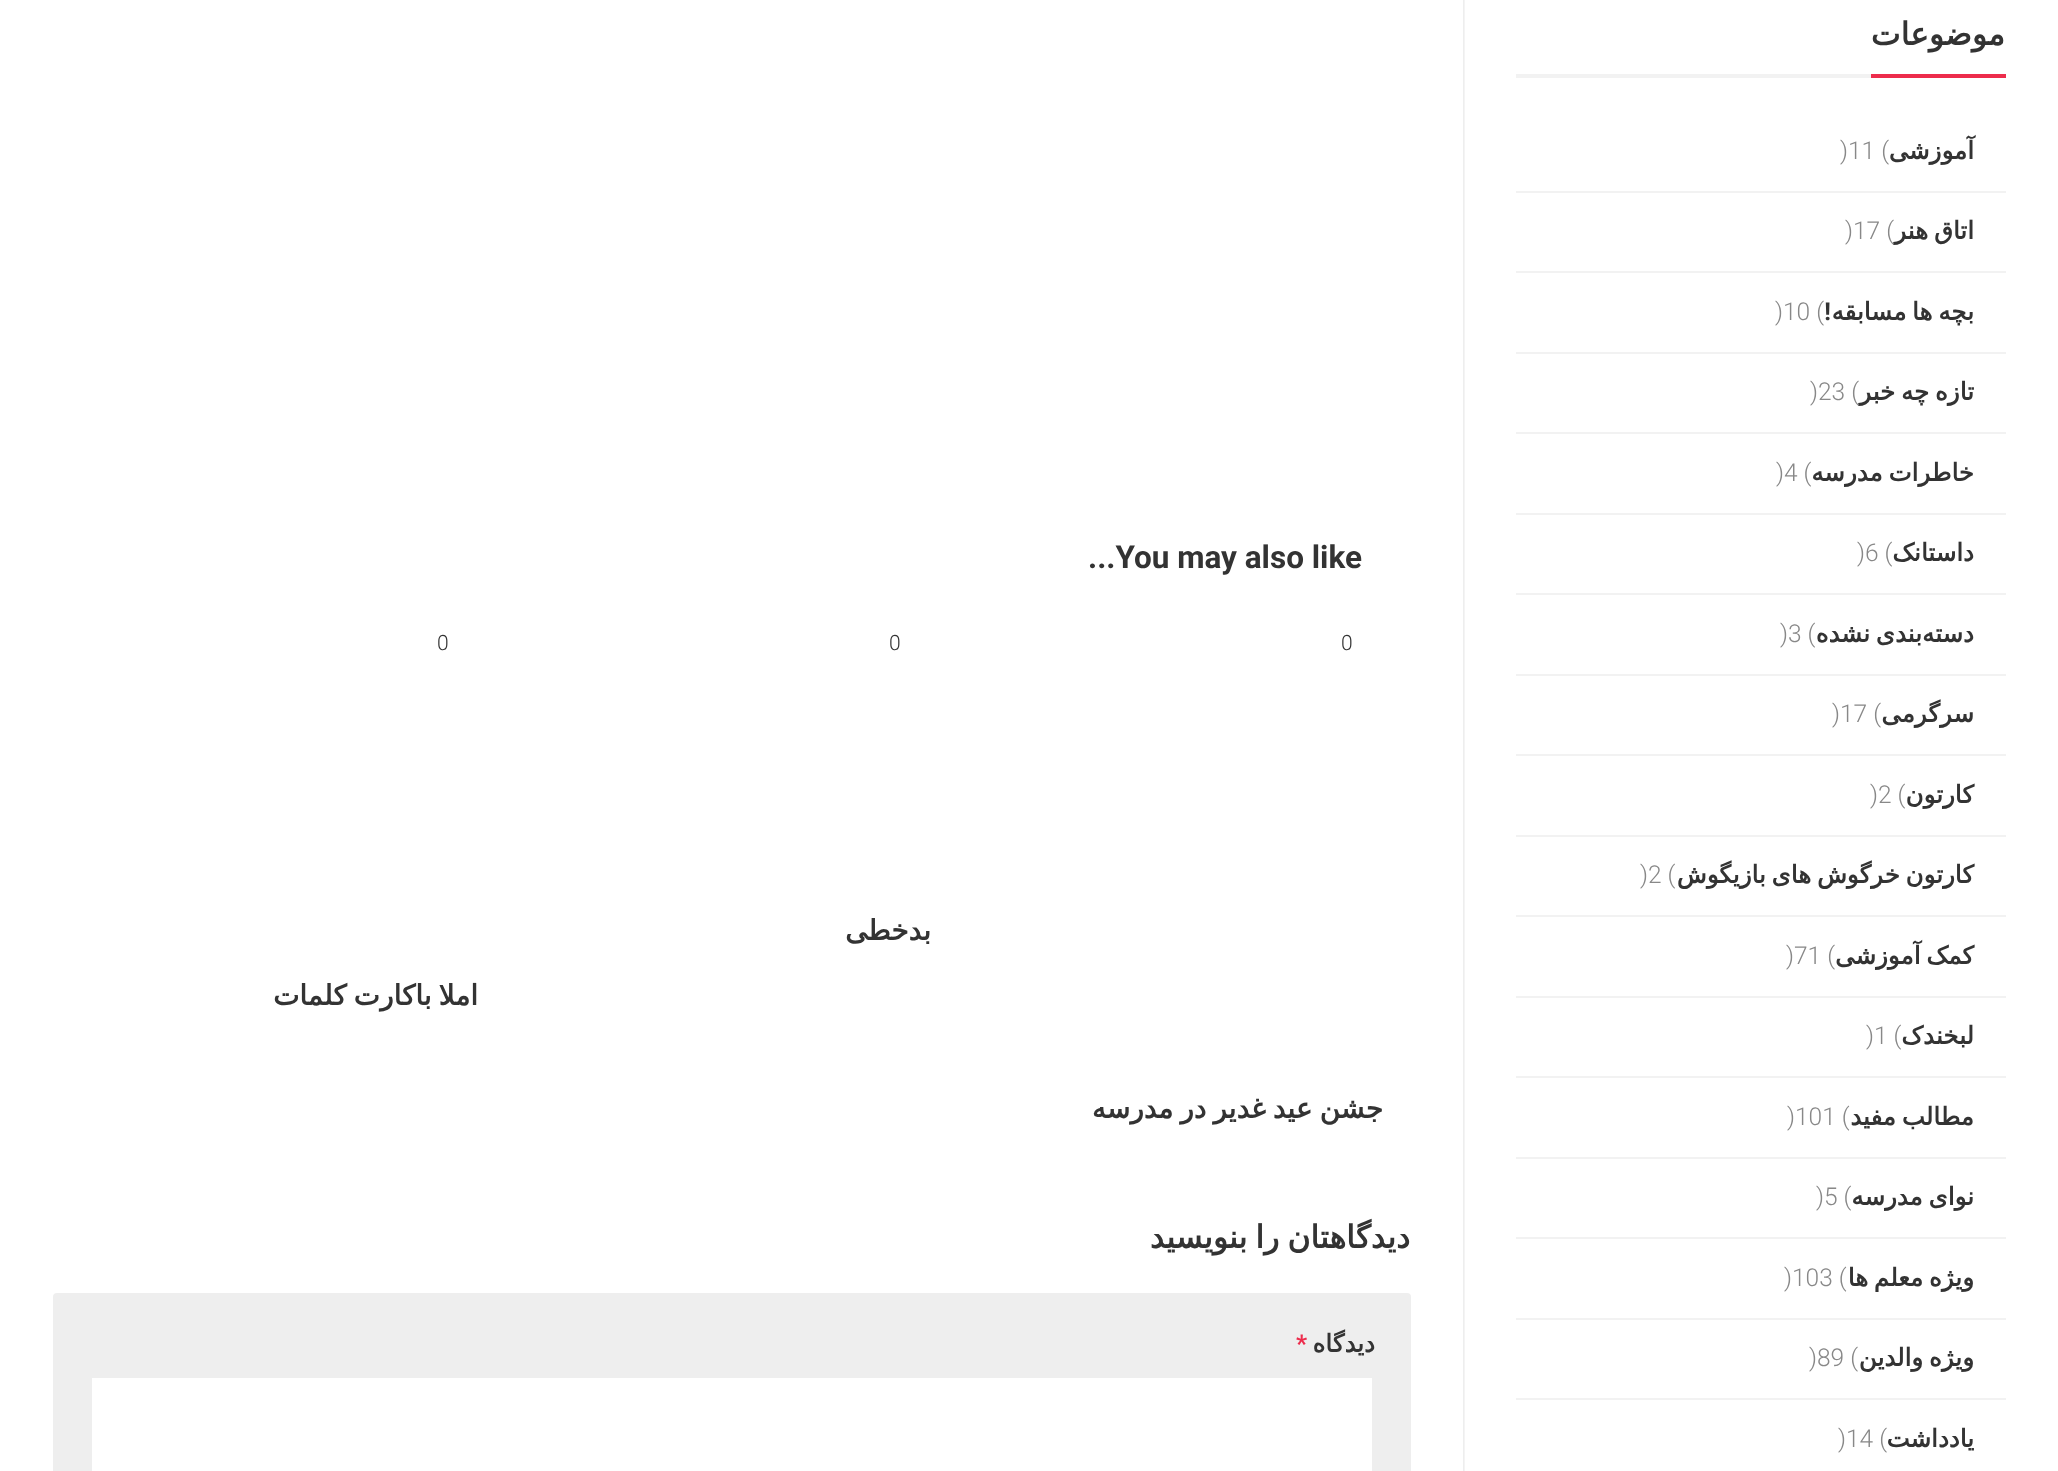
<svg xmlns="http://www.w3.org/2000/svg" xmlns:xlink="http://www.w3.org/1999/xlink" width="2058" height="1471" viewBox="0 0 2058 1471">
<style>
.cls-1{font:bold 31.5px DejaVu Sans;direction:rtl;fill:#333333}
.cls-2{font:bold 24.5px DejaVu Sans;direction:rtl;fill:#333333}
.cls-3{font:300 24.5px Roboto;fill:#888888}
.cls-4{font:bold 24.5px Roboto;direction:rtl;fill:#333333}
.cls-5{font:bold 31.5px Roboto;fill:#333333}
.cls-6{font:300 21px Roboto;fill:#333333}
.cls-7{font:bold 28px DejaVu Sans;direction:rtl;fill:#333333}
.cls-8{font:bold 24.5px Roboto;fill:#ed2c4c}
</style>
<rect width="100%" height="100%" fill="#ffffff"/>
<image xlink:href="image0.png" x="1463" y="0" width="2" height="1471"/>
<rect fill="#f2f2f2" x="1516" y="74" width="355" height="4"/>
<rect fill="#ed2c4c" x="1871" y="74" width="135" height="4"/>
<rect fill="#f2f2f2" x="1516" y="191" width="490" height="2"/>
<rect fill="#f2f2f2" x="1516" y="271" width="490" height="2"/>
<rect fill="#f2f2f2" x="1516" y="352" width="490" height="2"/>
<rect fill="#f2f2f2" x="1516" y="432" width="490" height="2"/>
<rect fill="#f2f2f2" x="1516" y="513" width="490" height="2"/>
<rect fill="#f2f2f2" x="1516" y="593" width="490" height="2"/>
<rect fill="#f2f2f2" x="1516" y="674" width="490" height="2"/>
<rect fill="#f2f2f2" x="1516" y="754" width="490" height="2"/>
<rect fill="#f2f2f2" x="1516" y="835" width="490" height="2"/>
<rect fill="#f2f2f2" x="1516" y="915" width="490" height="2"/>
<rect fill="#f2f2f2" x="1516" y="996" width="490" height="2"/>
<rect fill="#f2f2f2" x="1516" y="1076" width="490" height="2"/>
<rect fill="#f2f2f2" x="1516" y="1157" width="490" height="2"/>
<rect fill="#f2f2f2" x="1516" y="1237" width="490" height="2"/>
<rect fill="#f2f2f2" x="1516" y="1318" width="490" height="2"/>
<rect fill="#f2f2f2" x="1516" y="1398" width="490" height="2"/>
<rect fill="#eeeeee" x="53" y="1293" width="1358" height="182" rx="4"/>
<rect fill="#ffffff" x="92" y="1378" width="1280" height="93"/>
<text class="cls-1" x="2005" y="45">موضوعات</text>
<text class="cls-2" x="1974" y="159">آموزشی</text>
<text class="cls-3" x="1840" y="159">)11 (</text>
<text class="cls-2" x="1974" y="239" word-spacing="-2">اتاق هنر</text>
<text class="cls-3" x="1845" y="239">)17 (</text>
<text class="cls-2" x="1974" y="320" word-spacing="-2">بچه ها مسابقه</text>
<text class="cls-4" x="1831" y="320">!</text>
<text class="cls-3" x="1775" y="320">)10 (</text>
<text class="cls-2" x="1974" y="400" word-spacing="-2">تازه چه خبر</text>
<text class="cls-3" x="1810" y="400">)23 (</text>
<text class="cls-2" x="1974" y="481" word-spacing="-2">خاطرات مدرسه</text>
<text class="cls-3" x="1776" y="481">)4 (</text>
<text class="cls-2" x="1974" y="561">داستانک</text>
<text class="cls-3" x="1857" y="561">)6 (</text>
<text class="cls-2" x="1974" y="642" word-spacing="-2">دسته‌بندی نشده</text>
<text class="cls-3" x="1780" y="642">)3 (</text>
<text class="cls-2" x="1974" y="722">سرگرمی</text>
<text class="cls-3" x="1832" y="722">)17 (</text>
<text class="cls-2" x="1974" y="803">کارتون</text>
<text class="cls-3" x="1870" y="803">)2 (</text>
<text class="cls-2" x="1974" y="883" word-spacing="-2">کارتون خرگوش های بازیگوش</text>
<text class="cls-3" x="1640" y="883">)2 (</text>
<text class="cls-2" x="1974" y="964" word-spacing="-2">کمک آموزشی</text>
<text class="cls-3" x="1786" y="964">)71 (</text>
<text class="cls-2" x="1974" y="1044">لبخندک</text>
<text class="cls-3" x="1866" y="1044">)1 (</text>
<text class="cls-2" x="1974" y="1125" word-spacing="-2">مطالب مفید</text>
<text class="cls-3" x="1787" y="1125">)101 (</text>
<text class="cls-2" x="1974" y="1205" word-spacing="-2">نوای مدرسه</text>
<text class="cls-3" x="1816" y="1205">)5 (</text>
<text class="cls-2" x="1974" y="1286" word-spacing="-2">ویژه معلم ها</text>
<text class="cls-3" x="1784" y="1286">)103 (</text>
<text class="cls-2" x="1974" y="1366" word-spacing="-2">ویژه والدین</text>
<text class="cls-3" x="1809" y="1366">)89 (</text>
<text class="cls-2" x="1974" y="1447">یادداشت</text>
<text class="cls-3" x="1838" y="1447">)14 (</text>
<text class="cls-5" x="1088" y="568">...You may also like</text>
<text class="cls-6" x="1341" y="650">0</text>
<text class="cls-7" x="1383" y="1118" word-spacing="-2">جشن عید غدیر در مدرسه</text>
<text class="cls-6" x="889" y="650">0</text>
<text class="cls-7" x="931" y="940">بدخطی</text>
<text class="cls-6" x="437" y="650">0</text>
<text class="cls-7" x="478" y="1005" word-spacing="-2">املا باکارت کلمات</text>
<text class="cls-1" x="1410" y="1248" word-spacing="-2">دیدگاهتان را بنویسید</text>
<text class="cls-2" x="1375" y="1352">دیدگاه</text>
<text class="cls-8" x="1296" y="1352">*</text>
</svg>
